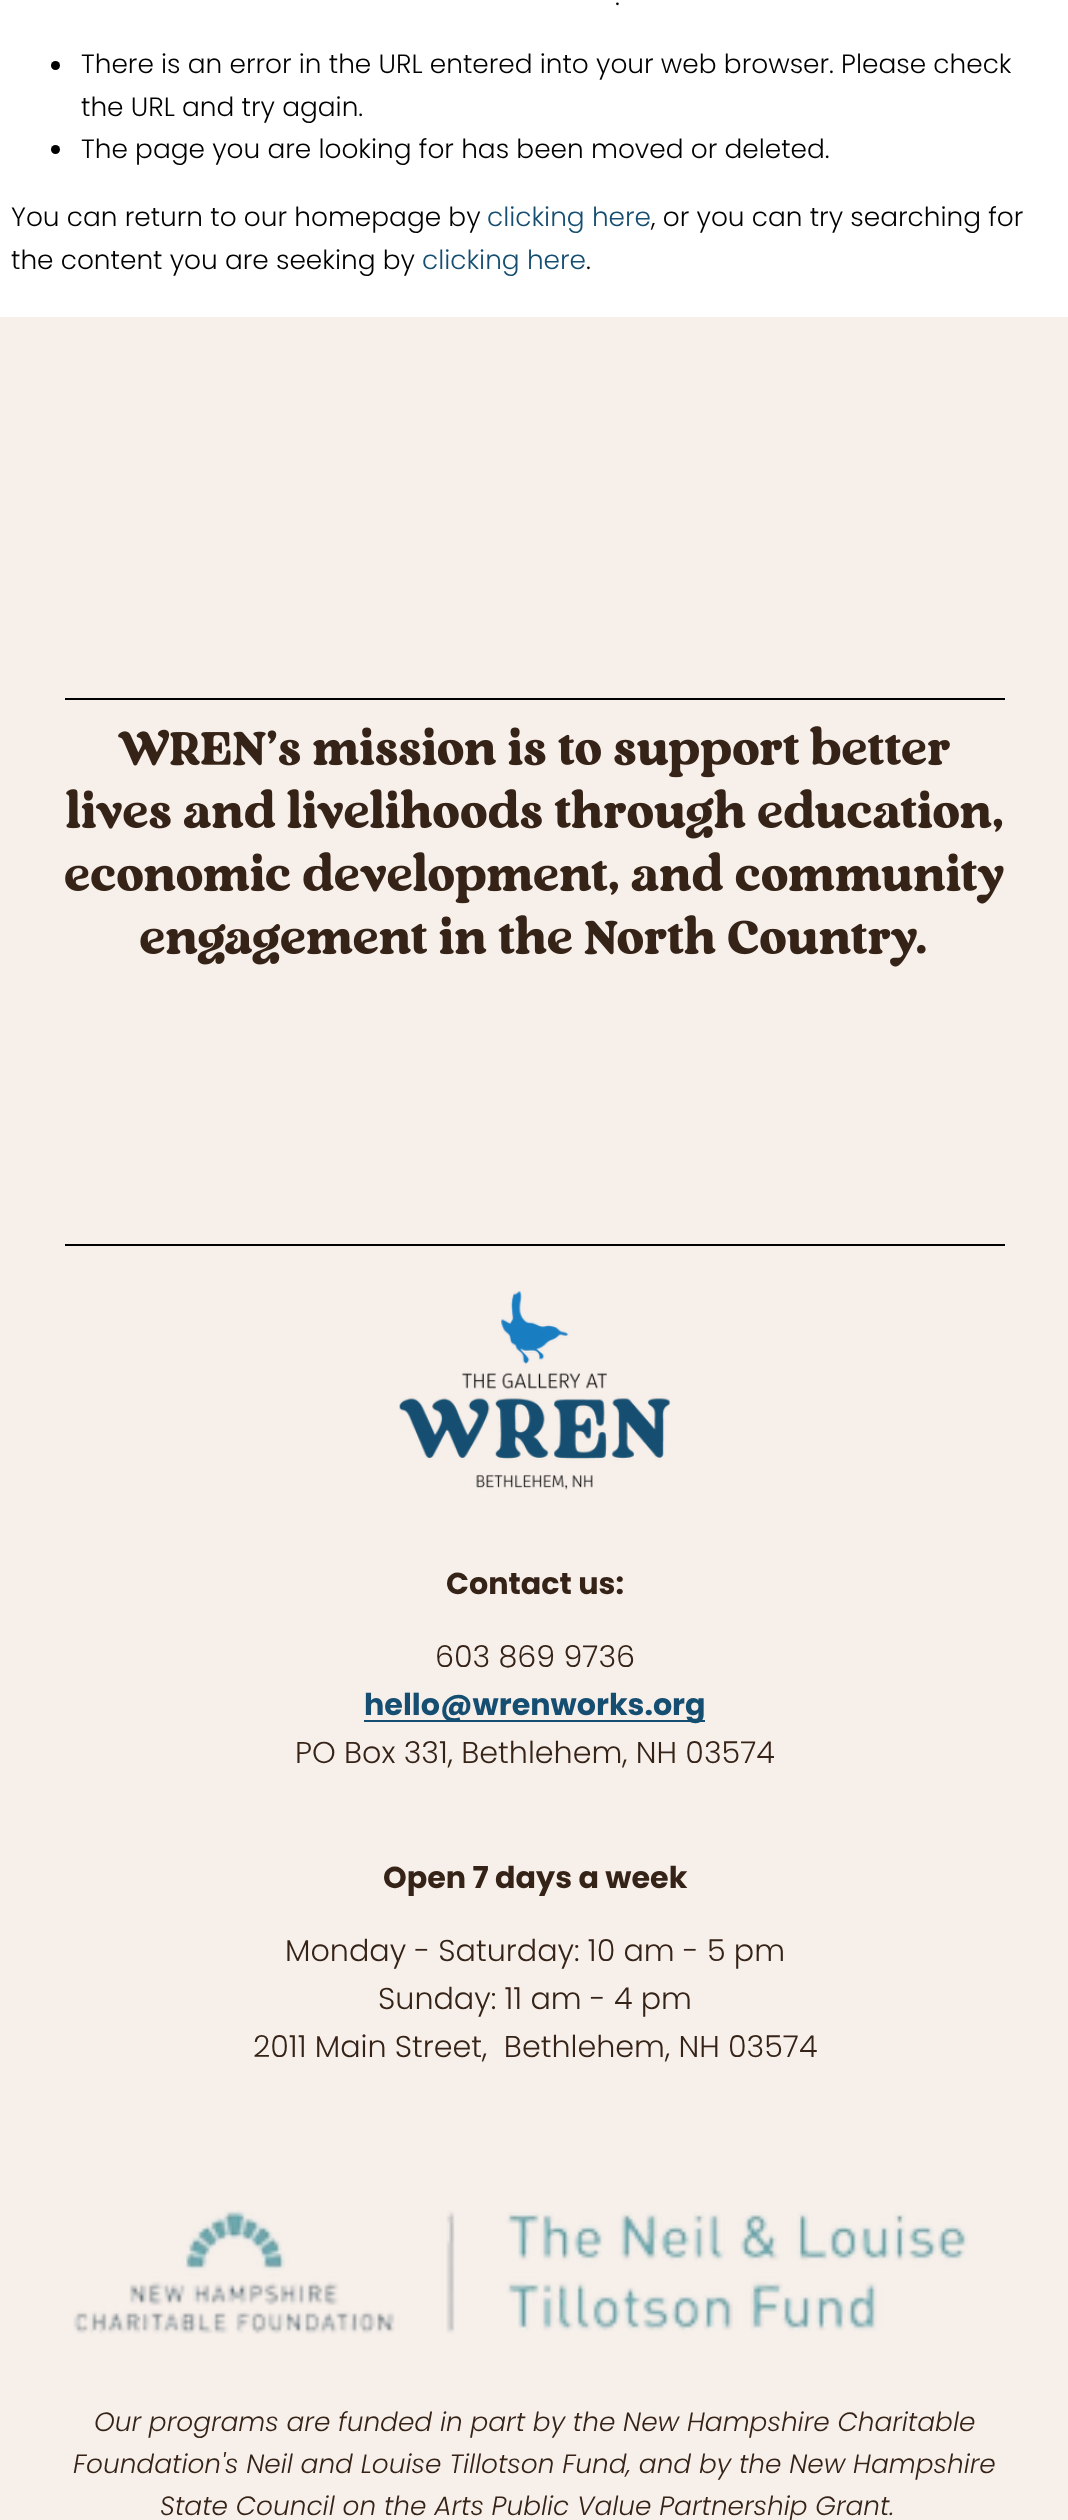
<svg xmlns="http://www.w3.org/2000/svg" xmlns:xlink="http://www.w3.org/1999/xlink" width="1068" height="2520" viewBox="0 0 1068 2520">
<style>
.cls-1{font:300 26.4px Poppins;fill:#000000}
.cls-2{font:300 26.4px Poppins;fill:#154e71}
.cls-3{font:bold 30.2px Poppins;fill:#362317}
.cls-4{font:300 30.2px Poppins;fill:#362317}
.cls-5{font:bold 30.2px Poppins;fill:#154e71}
.cls-6{font:italic 300 26.4px Poppins;fill:#362317}
</style>
<rect width="100%" height="100%" fill="#ffffff"/>
<circle fill="#000000" cx="55.5" cy="65.5" r="4.5"/>
<circle fill="#000000" cx="55.5" cy="149.5" r="4.5"/>
<rect fill="#f6efea" x="0" y="317" width="1068" height="2203"/>
<rect fill="#000000" x="65" y="698" width="940" height="2"/>
<image xlink:href="image0.png" x="118" y="726" width="832" height="52"/>
<image xlink:href="image1.png" x="66" y="789" width="937" height="50"/>
<image xlink:href="image2.png" x="65" y="852" width="939" height="52"/>
<image xlink:href="image3.png" x="140" y="915" width="786" height="52"/>
<rect fill="#000000" x="65" y="1244" width="940" height="2"/>
<image xlink:href="image4.png" x="399" y="1291" width="272" height="199"/>
<rect fill="#154e71" x="364" y="1720" width="341" height="2"/>
<image xlink:href="image5.png" x="73" y="2210" width="895" height="124"/>
<text class="cls-1" x="615" y="5">.</text>
<text class="cls-1"><tspan x="81" y="73">There is an error in the URL entered into your web browser. Please check</tspan><tspan x="81" y="116">the URL and try again.</tspan><tspan x="81" y="158">The page you are looking for has been moved or deleted.</tspan></text>
<text class="cls-1" x="11" y="226">You can return to our homepage by</text>
<text class="cls-2" x="487" y="226">clicking here</text>
<text class="cls-1" x="651" y="226">, or you can try searching for</text>
<text class="cls-1" x="11" y="269">the content you are seeking by</text>
<text class="cls-2" x="422" y="269">clicking here</text>
<text class="cls-1" x="586" y="269">.</text>
<text class="cls-3" x="446" y="1594">Contact us:</text>
<text class="cls-4" x="435" y="1667">603 869 9736</text>
<text class="cls-5" x="364" y="1715">hello@wrenworks.org</text>
<text class="cls-4" x="295" y="1763">PO Box 331, Bethlehem, NH 03574</text>
<text class="cls-3" x="383" y="1888">Open 7 days a week</text>
<text class="cls-4" x="285" y="1961">Monday - Saturday: 10 am - 5 pm</text>
<text class="cls-4" x="378" y="2009">Sunday: 11 am - 4 pm</text>
<text class="cls-4" xml:space="preserve" x="253" y="2057">2011 Main Street,  Bethlehem, NH 03574</text>
<text class="cls-6" x="94" y="2431">Our programs are funded in part by the New Hampshire Charitable</text>
<text class="cls-6" x="73" y="2473">Foundation's Neil and Louise Tillotson Fund, and by the New Hampshire</text>
<text class="cls-6" x="160" y="2515">State Council on the Arts Public Value Partnership Grant.</text>
</svg>
